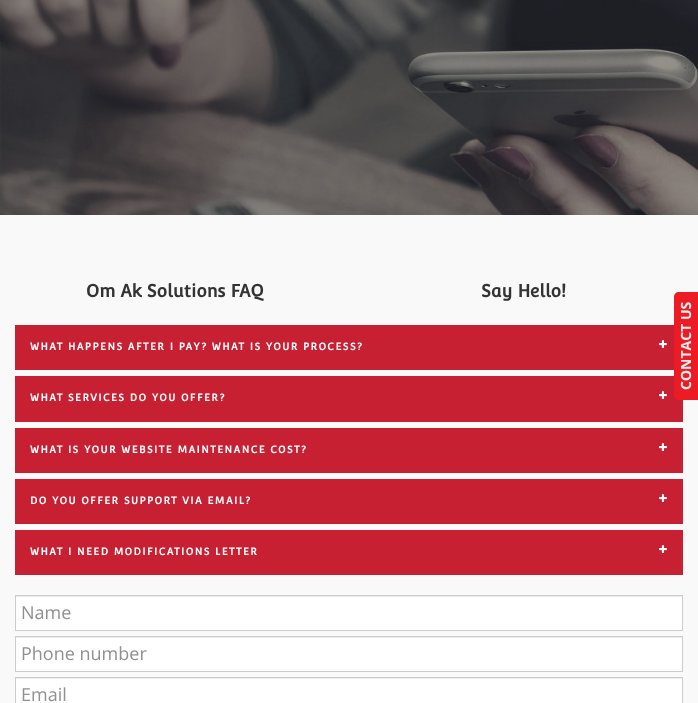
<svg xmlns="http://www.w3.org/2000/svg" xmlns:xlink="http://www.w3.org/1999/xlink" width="698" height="703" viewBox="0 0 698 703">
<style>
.cls-1{font:bold 17.5px Convergence;fill:#333333}
.cls-2{font:bold 10px Convergence;letter-spacing:1.4px;fill:#ffffff}
.cls-3{font:18px Open Sans;fill:#909090}
.cls-4{font:bold 14px Open Sans;fill:#efefef}
</style>
<rect width="100%" height="100%" fill="#ffffff"/>
<image xlink:href="image0.png" x="0" y="0" width="698" height="215"/>
<rect fill="#f9f9f9" x="0" y="215" width="698" height="488"/>
<rect fill="#c72033" x="15" y="325" width="659" height="45"/>
<image xlink:href="image1.png" x="659" y="340" width="8" height="8"/>
<rect fill="#c72033" x="15" y="376" width="668" height="46"/>
<image xlink:href="image1.png" x="659" y="391" width="8" height="8"/>
<rect fill="#c72033" x="15" y="428" width="668" height="45"/>
<image xlink:href="image1.png" x="659" y="443" width="8" height="8"/>
<rect fill="#c72033" x="15" y="479" width="668" height="45"/>
<image xlink:href="image1.png" x="659" y="494" width="8" height="8"/>
<rect fill="#c72033" x="15" y="530" width="668" height="45"/>
<image xlink:href="image1.png" x="659" y="545" width="8" height="8"/>
<rect fill="#ffffff" x="16" y="597" width="666" height="33"/>
<rect fill="#ececec" x="16" y="596" width="666" height="1"/>
<rect fill="none" stroke="#cccccc" x="15.5" y="595.5" width="667" height="35"/>
<rect fill="#ffffff" x="16" y="638" width="666" height="33"/>
<rect fill="#ececec" x="16" y="637" width="666" height="1"/>
<rect fill="none" stroke="#cccccc" x="15.5" y="636.5" width="667" height="35"/>
<rect fill="#ffffff" x="16" y="679" width="666" height="24"/>
<rect fill="#ececec" x="16" y="678" width="666" height="1"/>
<rect fill="none" stroke="#cccccc" x="15.5" y="677.5" width="667" height="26"/>
<path fill="#ed1c24" d="M674 395V297C674 294 676 292 679 292H698V400H679C676 400 674 398 674 395Z"/>
<text class="cls-1" x="86" y="297">Om Ak Solutions FAQ</text>
<text class="cls-1" x="481" y="297">Say Hello!</text>
<text class="cls-2" x="30" y="350">WHAT HAPPENS AFTER I PAY? WHAT IS YOUR PROCESS?</text>
<text class="cls-2" x="30" y="401">WHAT SERVICES DO YOU OFFER?</text>
<text class="cls-2" x="30" y="453">WHAT IS YOUR WEBSITE MAINTENANCE COST?</text>
<text class="cls-2" x="30" y="504">DO YOU OFFER SUPPORT VIA EMAIL?</text>
<text class="cls-2" x="30" y="555">WHAT I NEED MODIFICATIONS LETTER</text>
<text class="cls-3" x="21" y="619">Name</text>
<text class="cls-3" x="21" y="660">Phone number</text>
<text class="cls-3" x="21" y="701">Email</text>
<text class="cls-4" x="691" y="390" transform="rotate(-90 691 390)">CONTACT US</text>
</svg>
